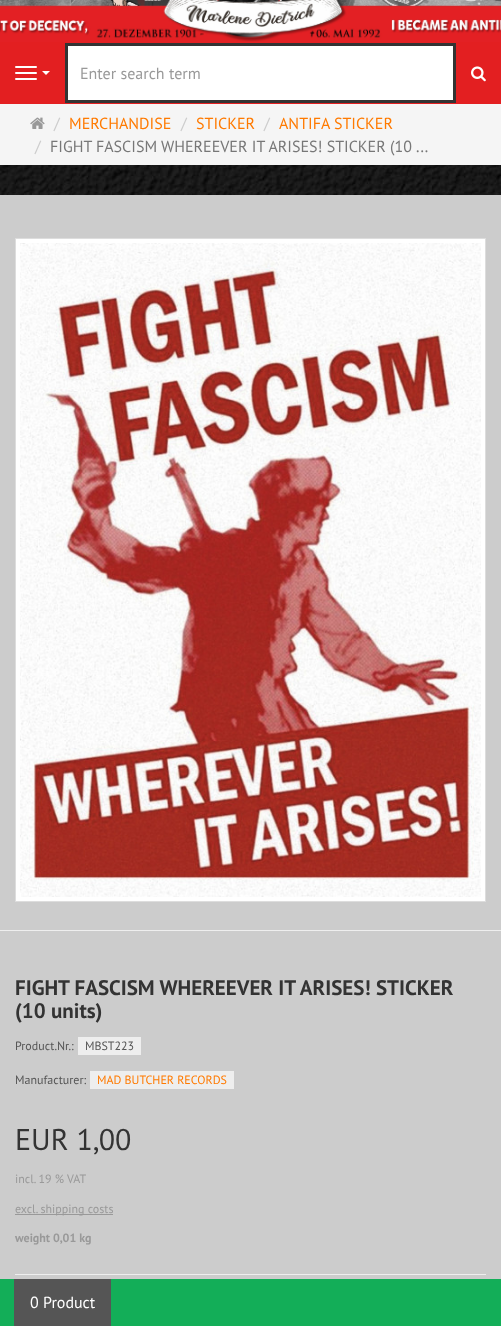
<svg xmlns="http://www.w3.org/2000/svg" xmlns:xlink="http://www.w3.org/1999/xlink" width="501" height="1326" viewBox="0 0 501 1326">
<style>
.cls-1{font:16px PT Sans;fill:#999999}
.cls-2{font:16px PT Sans;fill:#cccccc}
.cls-3{font:16px PT Sans;fill:#ff7a00}
.cls-4{font:16px PT Sans;fill:#777777}
.cls-5{font:bold 21px PT Sans;fill:#333333}
.cls-6{font:12px PT Sans;fill:#555555}
.cls-7{font:12px PT Sans;fill:#ff7a00}
.cls-8{font:30px PT Sans;fill:#333333}
.cls-9{font:12px PT Sans;fill:#999999}
.cls-10{font:bold 12px PT Sans;fill:#999999}
.cls-11{font:16px PT Sans;fill:#ffffff}
</style>
<rect width="100%" height="100%" fill="#ffffff"/>
<image xlink:href="image0.png" x="0" y="165" width="501" height="30"/>
<rect fill="#e31f21" x="0" y="42" width="501" height="62"/>
<image xlink:href="image1.png" x="0" y="0" width="501" height="42"/>
<rect fill="#ffffff" x="15" y="66" width="22" height="2" rx="1"/>
<rect fill="#ffffff" x="15" y="72" width="22" height="2" rx="1"/>
<rect fill="#ffffff" x="15" y="78" width="22" height="2" rx="1"/>
<path fill="#ffffff" d="M42 71H50L46 75Z"/>
<rect fill="#ffffff" stroke="#333333" stroke-width="3" x="66.5" y="44.5" width="388" height="57"/>
<image xlink:href="image2.png" x="471" y="66" width="15" height="16"/>
<rect fill="#f5f5f5" x="0" y="104" width="501" height="61"/>
<image xlink:href="image3.png" x="30" y="117" width="15" height="12"/>
<rect fill="#cccccc" x="0" y="195" width="501" height="1084"/>
<rect fill="#ffffff" stroke="#dddddd" x="15.5" y="238.5" width="470" height="663"/>
<image xlink:href="image4.png" x="20" y="243" width="461" height="654"/>
<rect fill="#eeeeee" x="0" y="930" width="501" height="1"/>
<rect fill="#eeeeee" x="78" y="1037" width="63" height="18"/>
<rect fill="#eeeeee" x="90" y="1071" width="144" height="18"/>
<rect fill="#999999" x="15" y="1214" width="98" height="1"/>
<rect fill="#eeeeee" x="15" y="1274" width="471" height="1"/>
<rect fill="#13ae58" x="0" y="1279" width="501" height="47"/>
<rect fill="#555555" x="14" y="1279" width="97" height="47"/>
<text class="cls-1" x="80" y="79">Enter search term</text>
<text class="cls-2" x="54" y="129">/</text>
<text class="cls-3" x="69" y="129">MERCHANDISE</text>
<text class="cls-2" x="181" y="129">/</text>
<text class="cls-3" x="196" y="129">STICKER</text>
<text class="cls-2" x="264" y="129">/</text>
<text class="cls-3" x="279" y="129">ANTIFA STICKER</text>
<text class="cls-2" x="35" y="152">/</text>
<text class="cls-4" x="50" y="152">FIGHT FASCISM WHEREEVER IT ARISES! STICKER (10 ...</text>
<text class="cls-5"><tspan x="15" y="995">FIGHT FASCISM WHEREEVER IT ARISES! STICKER</tspan><tspan x="15" y="1018">(10 units)</tspan></text>
<text class="cls-6" x="15" y="1050">Product.Nr.:</text>
<text class="cls-6" x="85" y="1050">MBST223</text>
<text class="cls-6" x="15" y="1084">Manufacturer:</text>
<text class="cls-7" x="97" y="1084">MAD BUTCHER RECORDS</text>
<text class="cls-8" x="15" y="1150">EUR 1,00</text>
<text class="cls-9" x="15" y="1183">incl. 19 % VAT</text>
<text class="cls-9" x="15" y="1213">excl. shipping costs</text>
<text class="cls-10" x="15" y="1242">weight 0,01 kg</text>
<text class="cls-11" x="30" y="1308">0 Product</text>
</svg>
